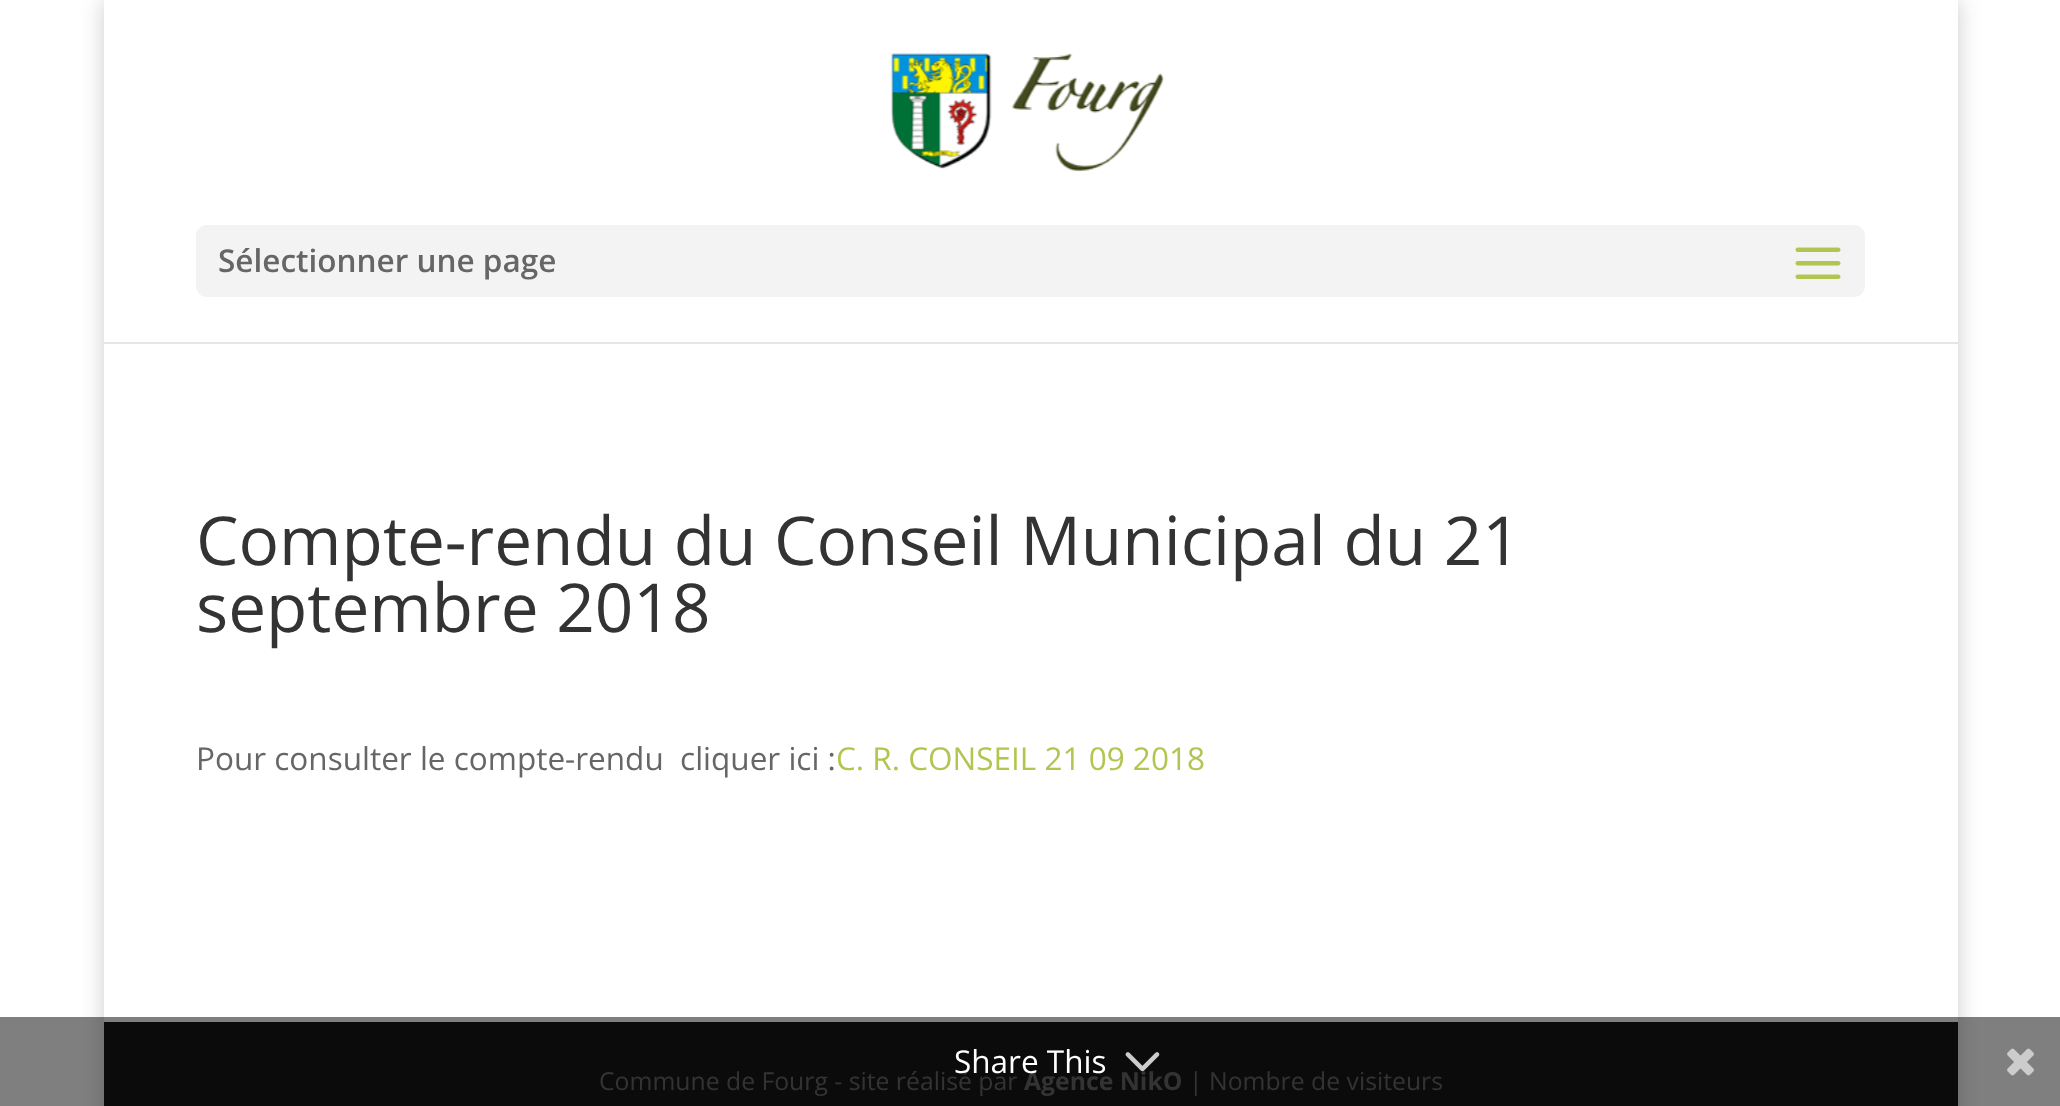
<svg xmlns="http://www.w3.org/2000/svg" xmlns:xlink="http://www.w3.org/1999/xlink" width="2060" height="1106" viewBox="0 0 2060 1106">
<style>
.cls-1{font:600 31.5px Open Sans;fill:#666666}
.cls-2{font:67.5px Open Sans;fill:#333333}
.cls-3{font:31.5px Open Sans;fill:#666666}
.cls-4{font:31.5px Open Sans;fill:#b1c651}
.cls-5{font:24.75px Open Sans;fill:#666666}
.cls-6{font:bold 24.75px Open Sans;fill:#666666}
.cls-7{font:31.5px Open Sans;fill:#ffffff}
</style>
<defs>
<clipPath id="clip1"><path d="M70 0H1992V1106H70ZM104 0H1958V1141H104Z" clip-rule="evenodd"/></clipPath>
</defs>
<rect width="100%" height="100%" fill="#ffffff"/>
<g clip-path="url(#clip1)">
<rect fill="#000000" fill-opacity="0.2" filter="blur(11px)" x="104" y="0" width="1854" height="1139"/>
</g>
<path fill="#000000" fill-opacity="0.1" d="M104 342V344H1958V2V342Z"/>
<rect fill="#ffffff" x="1957" y="0" width="1" height="342"/>
<image xlink:href="image0.png" x="890" y="53" width="275" height="119"/>
<rect fill="#f3f3f3" x="196" y="225" width="1669" height="72" rx="11"/>
<image xlink:href="image1.png" x="1795" y="247" width="46" height="32"/>
<rect fill="#ffffff" x="1957" y="376" width="1" height="551"/>
<rect fill="#171717" x="104" y="1022" width="1854" height="84"/>
<text class="cls-1" x="218" y="272">Sélectionner une page</text>
<text class="cls-2"><tspan x="196" y="565">Compte-rendu du Conseil Municipal du 21</tspan><tspan x="196" y="632">septembre 2018</tspan></text>
<text class="cls-3" xml:space="preserve" x="196" y="770">Pour consulter le compte-rendu  cliquer ici :</text>
<text class="cls-4" x="836" y="770">C. R. CONSEIL 21 09 2018</text>
<text class="cls-5" x="599" y="1090">Commune de Fourg - site réalisé par</text>
<text class="cls-6" x="1024" y="1090">Agence NikO</text>
<text class="cls-5" x="1189" y="1090">| Nombre de visiteurs</text>
<rect fill="#000000" fill-opacity="0.5" x="0" y="1017" width="2060" height="89"/>
<text class="cls-7" x="954" y="1073">Share This</text>
<image xlink:href="image2.png" x="1125" y="1052" width="35" height="20"/>
<image xlink:href="image3.png" x="2007" y="1048" width="27" height="28"/>
</svg>
